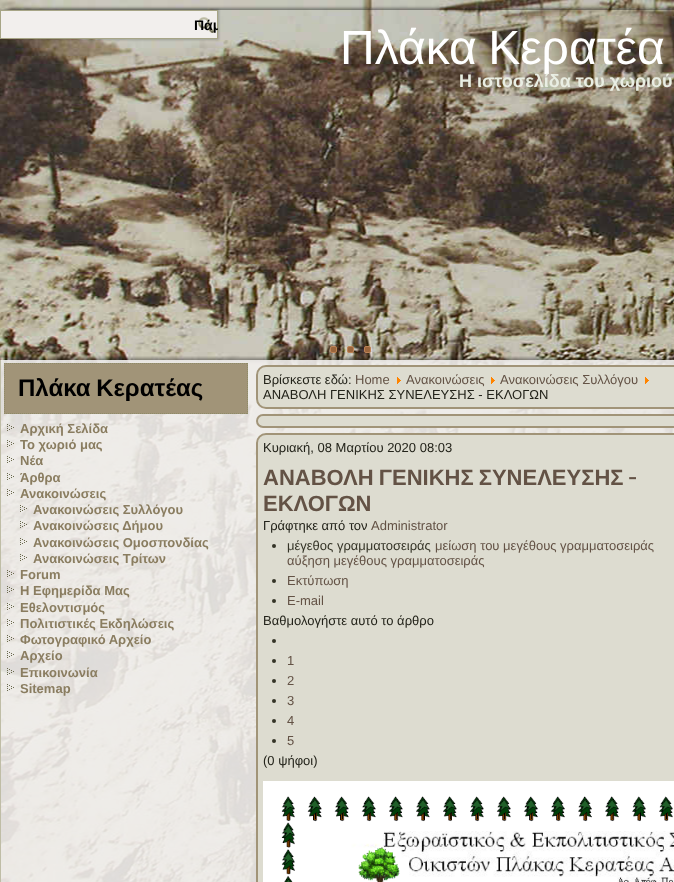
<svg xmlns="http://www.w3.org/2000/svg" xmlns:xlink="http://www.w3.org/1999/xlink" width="674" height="882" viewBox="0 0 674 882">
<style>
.cls-1{font:bold 14px Liberation Sans;fill:#000000}
.cls-2{font:48px Liberation Sans;fill:#ffffff}
.cls-3{font:bold 18px Liberation Sans;fill:#e9eee3}
.cls-4{font:bold 24px Liberation Sans;fill:#000000}
.cls-5{font:bold 13px Liberation Sans;fill:#8a7d60}
.cls-6{font:13px Liberation Sans;fill:#23231a}
.cls-7{font:13px Liberation Sans;fill:#635245}
.cls-8{font:bold 22px Liberation Sans;fill:#635245}
.cls-9{font:bold 22px Cabin;fill:#635245}
.cls-10{font:13px Liberation Sans;fill:#353427}
</style>
<defs>
<clipPath id="clip1"><path d="M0 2H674V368H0ZM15 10H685C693.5 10 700 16.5 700 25V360H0V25C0 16.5 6.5 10 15 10Z" clip-rule="evenodd"/></clipPath>
<clipPath id="clip2"><rect x="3" y="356" width="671" height="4"/></clipPath>
<clipPath id="clip3"><rect x="194" y="10" width="24" height="29"/></clipPath>
</defs>
<rect width="100%" height="100%" fill="#ffffff"/>
<image xlink:href="image0.png" x="0" y="0" width="674" height="882"/>
<g clip-path="url(#clip1)">
<rect fill="#000000" fill-opacity="0.4" filter="blur(1.5px)" x="-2" y="8" width="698" height="354" rx="17"/>
</g>
<rect fill="#000000" fill-opacity="0.2" filter="blur(1px)" x="-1" y="9" width="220" height="31"/>
<rect fill="#f2efed" stroke="#a7a586" x="0.5" y="10.5" width="217" height="28"/>
<image xlink:href="image1.png" x="198" y="17" width="16" height="16"/>
<g clip-path="url(#clip2)">
<rect fill="#000000" fill-opacity="0.36" filter="blur(1.5px)" x="-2" y="358" width="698" height="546" rx="17"/>
</g>
<rect fill="#9a653c" stroke="#bd8356" x="330.5" y="346.5" width="6" height="6" rx="1.5"/>
<rect fill="#9a653c" stroke="#bd8356" x="347.5" y="346.5" width="6" height="6" rx="1.5"/>
<rect fill="#9a653c" stroke="#bd8356" x="364.5" y="346.5" width="6" height="6" rx="1.5"/>
<rect fill="#f2efed" fill-opacity="0.9" x="1" y="360" width="673" height="522"/>
<path fill="#bfbda6" fill-rule="evenodd" d="M0 360H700V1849C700 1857 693 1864 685 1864H15C7 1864 0 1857 0 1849ZM1 360H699V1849C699 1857 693 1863 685 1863H15C7 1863 1 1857 1 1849Z"/>
<rect fill="#a19478" x="4" y="363" width="244" height="51"/>
<path fill="none" stroke="#8e8b67" stroke-dasharray="1 1" d="M4 363.5H248"/>
<path fill="none" stroke="#8e8b67" stroke-dasharray="1 1" d="M247.5 363V414"/>
<path fill="none" stroke="#8e8b67" stroke-dasharray="1 1" d="M4 413.5H248"/>
<path fill="none" stroke="#8e8b67" stroke-dasharray="1 1" d="M4.5 363V414"/>
<image xlink:href="image2.png" x="7" y="424" width="7" height="7"/>
<image xlink:href="image3.png" x="7" y="440" width="7" height="7"/>
<image xlink:href="image4.png" x="7" y="456" width="7" height="7"/>
<image xlink:href="image5.png" x="7" y="473" width="7" height="7"/>
<image xlink:href="image6.png" x="7" y="489" width="7" height="7"/>
<image xlink:href="image7.png" x="20" y="505" width="7" height="7"/>
<image xlink:href="image8.png" x="20" y="521" width="7" height="7"/>
<image xlink:href="image9.png" x="20" y="538" width="7" height="7"/>
<image xlink:href="image10.png" x="20" y="554" width="7" height="7"/>
<image xlink:href="image11.png" x="7" y="570" width="7" height="7"/>
<image xlink:href="image12.png" x="7" y="586" width="7" height="7"/>
<image xlink:href="image13.png" x="7" y="603" width="7" height="7"/>
<image xlink:href="image14.png" x="7" y="619" width="7" height="7"/>
<image xlink:href="image15.png" x="7" y="635" width="7" height="7"/>
<image xlink:href="image16.png" x="7" y="651" width="7" height="7"/>
<image xlink:href="image17.png" x="7" y="668" width="7" height="7"/>
<image xlink:href="image18.png" x="7" y="684" width="7" height="7"/>
<rect fill="#dddcd0" stroke="#a19478" stroke-width="2" x="257" y="366" width="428" height="42" rx="9"/>
<image xlink:href="image19.png" x="397" y="377" width="4" height="7"/>
<image xlink:href="image19.png" x="491" y="377" width="4" height="7"/>
<image xlink:href="image19.png" x="645" y="377" width="4" height="7"/>
<rect fill="#dddcd0" stroke="#a19478" stroke-width="2" x="257" y="415" width="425" height="12" rx="6"/>
<rect fill="#dddcd0" stroke="#a19478" stroke-width="2" x="257" y="434" width="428" height="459" rx="9"/>
<circle fill="#353427" cx="274" cy="546" r="2"/>
<circle fill="#353427" cx="274" cy="581" r="2"/>
<circle fill="#353427" cx="274" cy="601" r="2"/>
<circle fill="#353427" cx="274" cy="641" r="2"/>
<circle fill="#353427" cx="274" cy="661" r="2"/>
<circle fill="#353427" cx="274" cy="681" r="2"/>
<circle fill="#353427" cx="274" cy="701" r="2"/>
<circle fill="#353427" cx="274" cy="721" r="2"/>
<circle fill="#353427" cx="274" cy="741" r="2"/>
<image xlink:href="image20.png" x="263" y="781" width="411" height="101"/>
<g clip-path="url(#clip3)">
<text class="cls-1" x="194" y="30">Πάμ</text>
</g>
<text class="cls-2" x="340" y="64" word-spacing="-2">Πλάκα Κερατέα</text>
<text class="cls-3" x="459" y="87">Η ιστοσελίδα του χωριού</text>
<text class="cls-4" x="18" y="396" word-spacing="-1">Πλάκα Κερατέας</text>
<text class="cls-5"><tspan x="20" y="433">Αρχική Σελίδα</tspan><tspan x="20" y="449">Το χωριό μας</tspan><tspan x="20" y="465">Νέα</tspan><tspan x="20" y="482">Άρθρα</tspan><tspan x="20" y="498">Ανακοινώσεις</tspan></text>
<text class="cls-5"><tspan x="33" y="514">Ανακοινώσεις Συλλόγου</tspan><tspan x="33" y="530">Ανακοινώσεις Δήμου</tspan><tspan x="33" y="547">Ανακοινώσεις Ομοσπονδίας</tspan><tspan x="33" y="563">Ανακοινώσεις Τρίτων</tspan></text>
<text class="cls-5"><tspan x="20" y="579">Forum</tspan><tspan x="20" y="595">Η Εφημερίδα Μας</tspan><tspan x="20" y="612">Εθελοντισμός</tspan><tspan x="20" y="628">Πολιτιστικές Εκδηλώσεις</tspan><tspan x="20" y="644">Φωτογραφικό Αρχείο</tspan><tspan x="20" y="660">Αρχείο</tspan><tspan x="20" y="677">Επικοινωνία</tspan><tspan x="20" y="693">Sitemap</tspan></text>
<text class="cls-6" x="263" y="384">Βρίσκεστε εδώ:</text>
<text class="cls-7" x="355" y="384">Home</text>
<text class="cls-7" x="406" y="384">Ανακοινώσεις</text>
<text class="cls-7" x="500" y="384">Ανακοινώσεις Συλλόγου</text>
<text class="cls-6" x="263" y="399">ΑΝΑΒΟΛΗ ΓΕΝΙΚΗΣ ΣΥΝΕΛΕΥΣΗΣ - ΕΚΛΟΓΩΝ</text>
<text class="cls-6" x="263" y="452">Κυριακή, 08 Μαρτίου 2020 08:03</text>
<text class="cls-8" x="263" y="485" word-spacing="-1">ΑΝΑΒΟΛΗ ΓΕΝΙΚΗΣ ΣΥΝΕΛΕΥΣΗΣ</text>
<text class="cls-9" x="628" y="485">-</text>
<text class="cls-8" x="263" y="511">ΕΚΛΟΓΩΝ</text>
<text class="cls-6" x="263" y="530">Γράφτηκε από τον</text>
<text class="cls-7" x="371" y="530">Administrator</text>
<text class="cls-10" x="287" y="550">μέγεθος γραμματοσειράς</text>
<text class="cls-7" x="435" y="550">μείωση του μεγέθους γραμματοσειράς</text>
<text class="cls-7"><tspan x="287" y="565">αύξηση μεγέθους γραμματοσειράς</tspan><tspan x="287" y="585">Εκτύπωση</tspan><tspan x="287" y="605">E-mail</tspan></text>
<text class="cls-6" x="263" y="625">Βαθμολογήστε αυτό το άρθρο</text>
<text class="cls-7"><tspan x="287" y="665">1</tspan><tspan x="287" y="685">2</tspan><tspan x="287" y="705">3</tspan><tspan x="287" y="725">4</tspan><tspan x="287" y="745">5</tspan></text>
<text class="cls-6" x="263" y="765">(0 ψήφοι)</text>
</svg>
